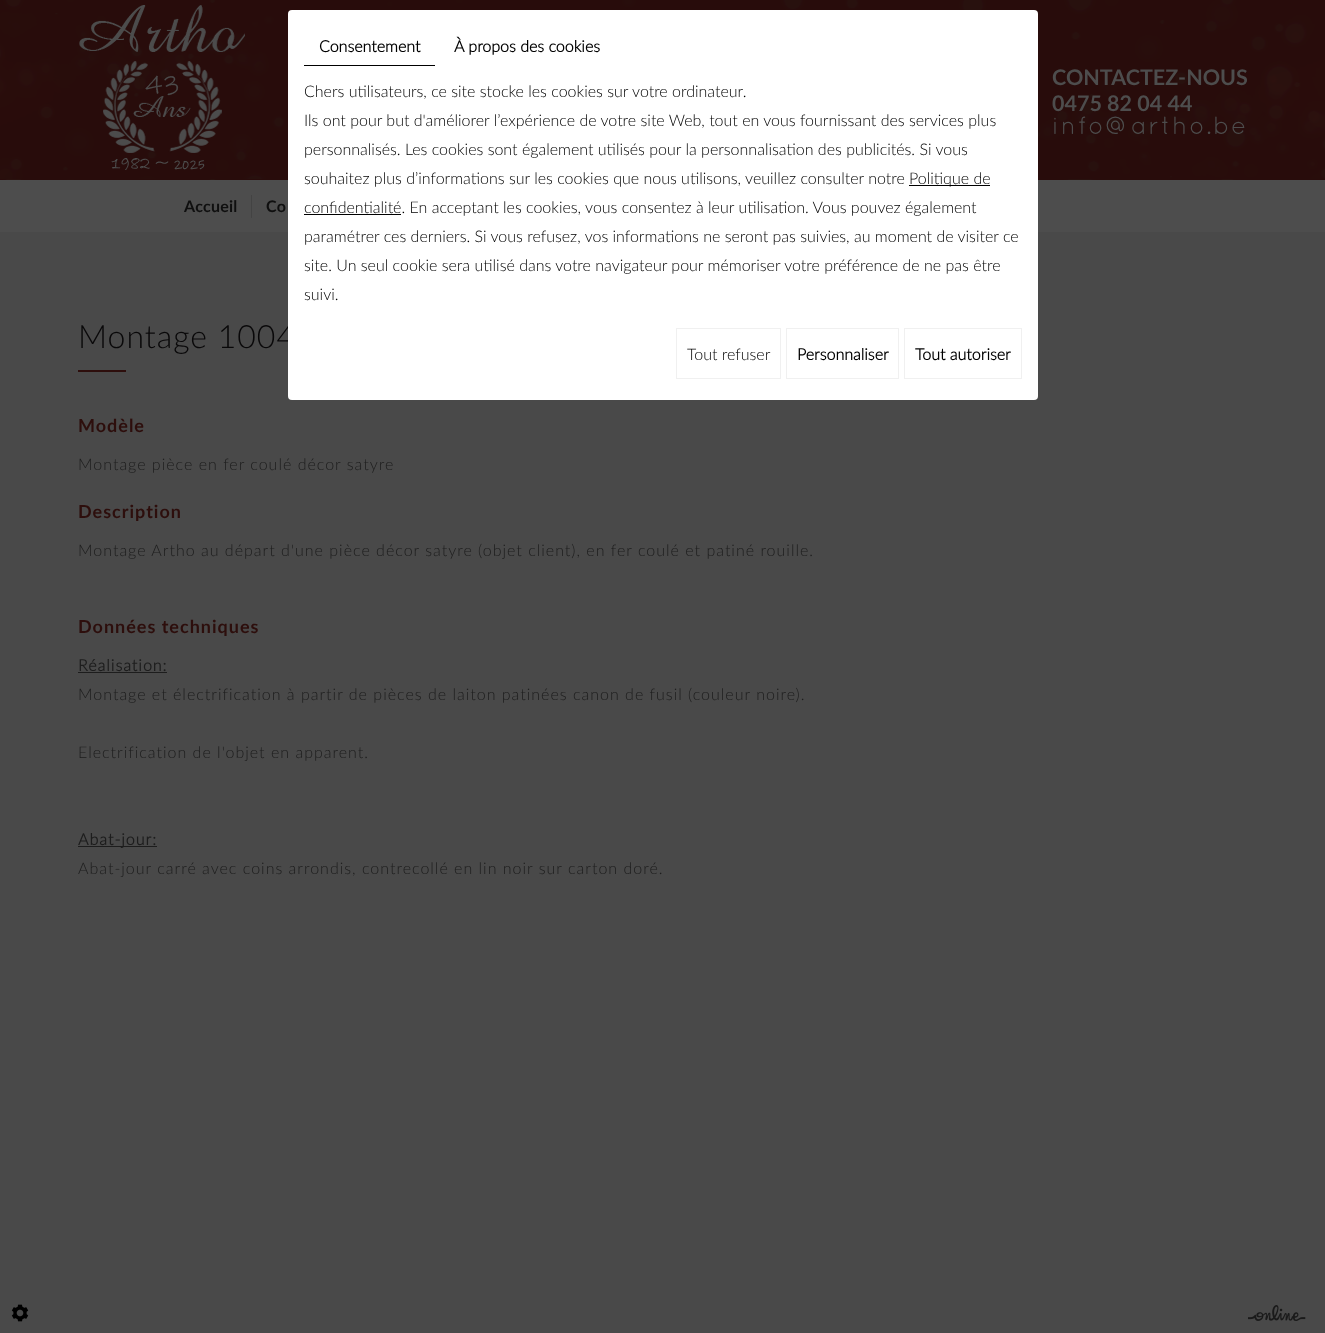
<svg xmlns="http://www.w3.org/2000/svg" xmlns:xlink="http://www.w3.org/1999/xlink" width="1325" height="1333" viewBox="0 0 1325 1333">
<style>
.cls-1{font:bold 21.5px Lato;fill:#4d4d4d}
.cls-2{font:25px Quicksand;letter-spacing:1.6px;fill:#4d4d4d}
.cls-3{font:bold 16px Lato;letter-spacing:0.25px;fill:#0f0f0f}
.cls-4{font:300 32px Lato;letter-spacing:1px;fill:#090809}
.cls-5{font:bold 16px 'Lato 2';fill:#000000}
.cls-6{font:300 16px Lato;fill:#000000}
.cls-7{font:bold 18px Lato;letter-spacing:1px;fill:#2d0e0c}
.cls-8{font:300 16px Lato;letter-spacing:1px;fill:#1d1d1d}
.cls-9{font:bold 16px 'Lato 2';letter-spacing:1px;fill:#1d1d1d}
</style>
<rect width="100%" height="100%" fill="#494949"/>
<image xlink:href="image0.png" x="0" y="0" width="1325" height="180"/>
<image xlink:href="image1.png" x="79" y="5" width="166" height="165"/>
<rect fill="#4d4d4d" x="0" y="180" width="1325" height="52"/>
<image xlink:href="image2.png" x="251" y="195" width="1" height="23"/>
<rect fill="#2d0e0c" x="78" y="370" width="48" height="2"/>
<rect fill="#1d1d1d" x="78" y="672" width="89" height="1"/>
<rect fill="#1d1d1d" x="78" y="846" width="79" height="1"/>
<image xlink:href="image3.png" x="11" y="1304" width="18" height="18"/>
<image xlink:href="image4.png" x="1248" y="1305" width="58" height="16"/>
<text class="cls-1"><tspan x="1052" y="85">CONTACTEZ-NOUS</tspan><tspan x="1052" y="111">0475 82 04 44</tspan></text>
<text class="cls-2" x="1052" y="134">info@artho.be</text>
<text class="cls-3" x="184" y="212">Accueil</text>
<text class="cls-3" x="266" y="212">Co</text>
<text class="cls-4" x="78" y="348">Montage 1004</text>
<rect fill="#ffffff" x="288" y="10" width="750" height="390" rx="4"/>
<rect fill="none" stroke="#f0f0f0" x="904.5" y="328.5" width="117" height="50"/>
<text class="cls-5" x="915" y="360">Tout autoriser</text>
<rect fill="none" stroke="#f0f0f0" x="786.5" y="328.5" width="112" height="50"/>
<text class="cls-5" x="797" y="360">Personnaliser</text>
<rect fill="none" stroke="#f0f0f0" x="676.5" y="328.5" width="104" height="50"/>
<text class="cls-6" x="687" y="360">Tout refuser</text>
<text class="cls-6" x="304" y="300">suivi.</text>
<text class="cls-6" x="304" y="271">site. Un seul cookie sera utilisé dans votre navigateur pour mémoriser votre préférence de ne pas être</text>
<text class="cls-6" x="304" y="242">paramétrer ces derniers. Si vous refusez, vos informations ne seront pas suivies, au moment de visiter ce</text>
<rect fill="#000000" x="304" y="214" width="97" height="1"/>
<text class="cls-6" x="304" y="213">confidentialité. En acceptant les cookies, vous consentez à leur utilisation. Vous pouvez également</text>
<rect fill="#000000" x="909" y="185" width="81" height="1"/>
<text class="cls-6" x="909" y="184">Politique de</text>
<text class="cls-6" x="304" y="184">souhaitez plus d’informations sur les cookies que nous utilisons, veuillez consulter notre</text>
<text class="cls-6" x="304" y="155">personnalisés. Les cookies sont également utilisés pour la personnalisation des publicités. Si vous</text>
<text class="cls-6" x="304" y="126">Ils ont pour but d'améliorer l’expérience de votre site Web, tout en vous fournissant des services plus</text>
<text class="cls-6" x="304" y="97">Chers utilisateurs, ce site stocke les cookies sur votre ordinateur.</text>
<text class="cls-5" x="454" y="52">À propos des cookies</text>
<text class="cls-5" x="319" y="52">Consentement</text>
<rect fill="#000000" x="304" y="65" width="131" height="1"/>
<text class="cls-7" x="78" y="432">Modèle</text>
<text class="cls-8" x="78" y="470">Montage pièce en fer coulé décor satyre</text>
<text class="cls-7" x="78" y="518">Description</text>
<text class="cls-8" x="78" y="556">Montage Artho au départ d'une pièce décor satyre (objet client), en fer coulé et patiné rouille.</text>
<text class="cls-7" x="78" y="633">Données techniques</text>
<text class="cls-9" x="78" y="671">Réalisation:</text>
<text class="cls-8" x="78" y="700">Montage et électrification à partir de pièces de laiton patinées canon de fusil (couleur noire).</text>
<text class="cls-8" x="78" y="758">Electrification de l'objet en apparent.</text>
<text class="cls-9" x="78" y="845">Abat-jour:</text>
<text class="cls-8" x="78" y="874">Abat-jour carré avec coins arrondis, contrecollé en lin noir sur carton doré.</text>
</svg>
